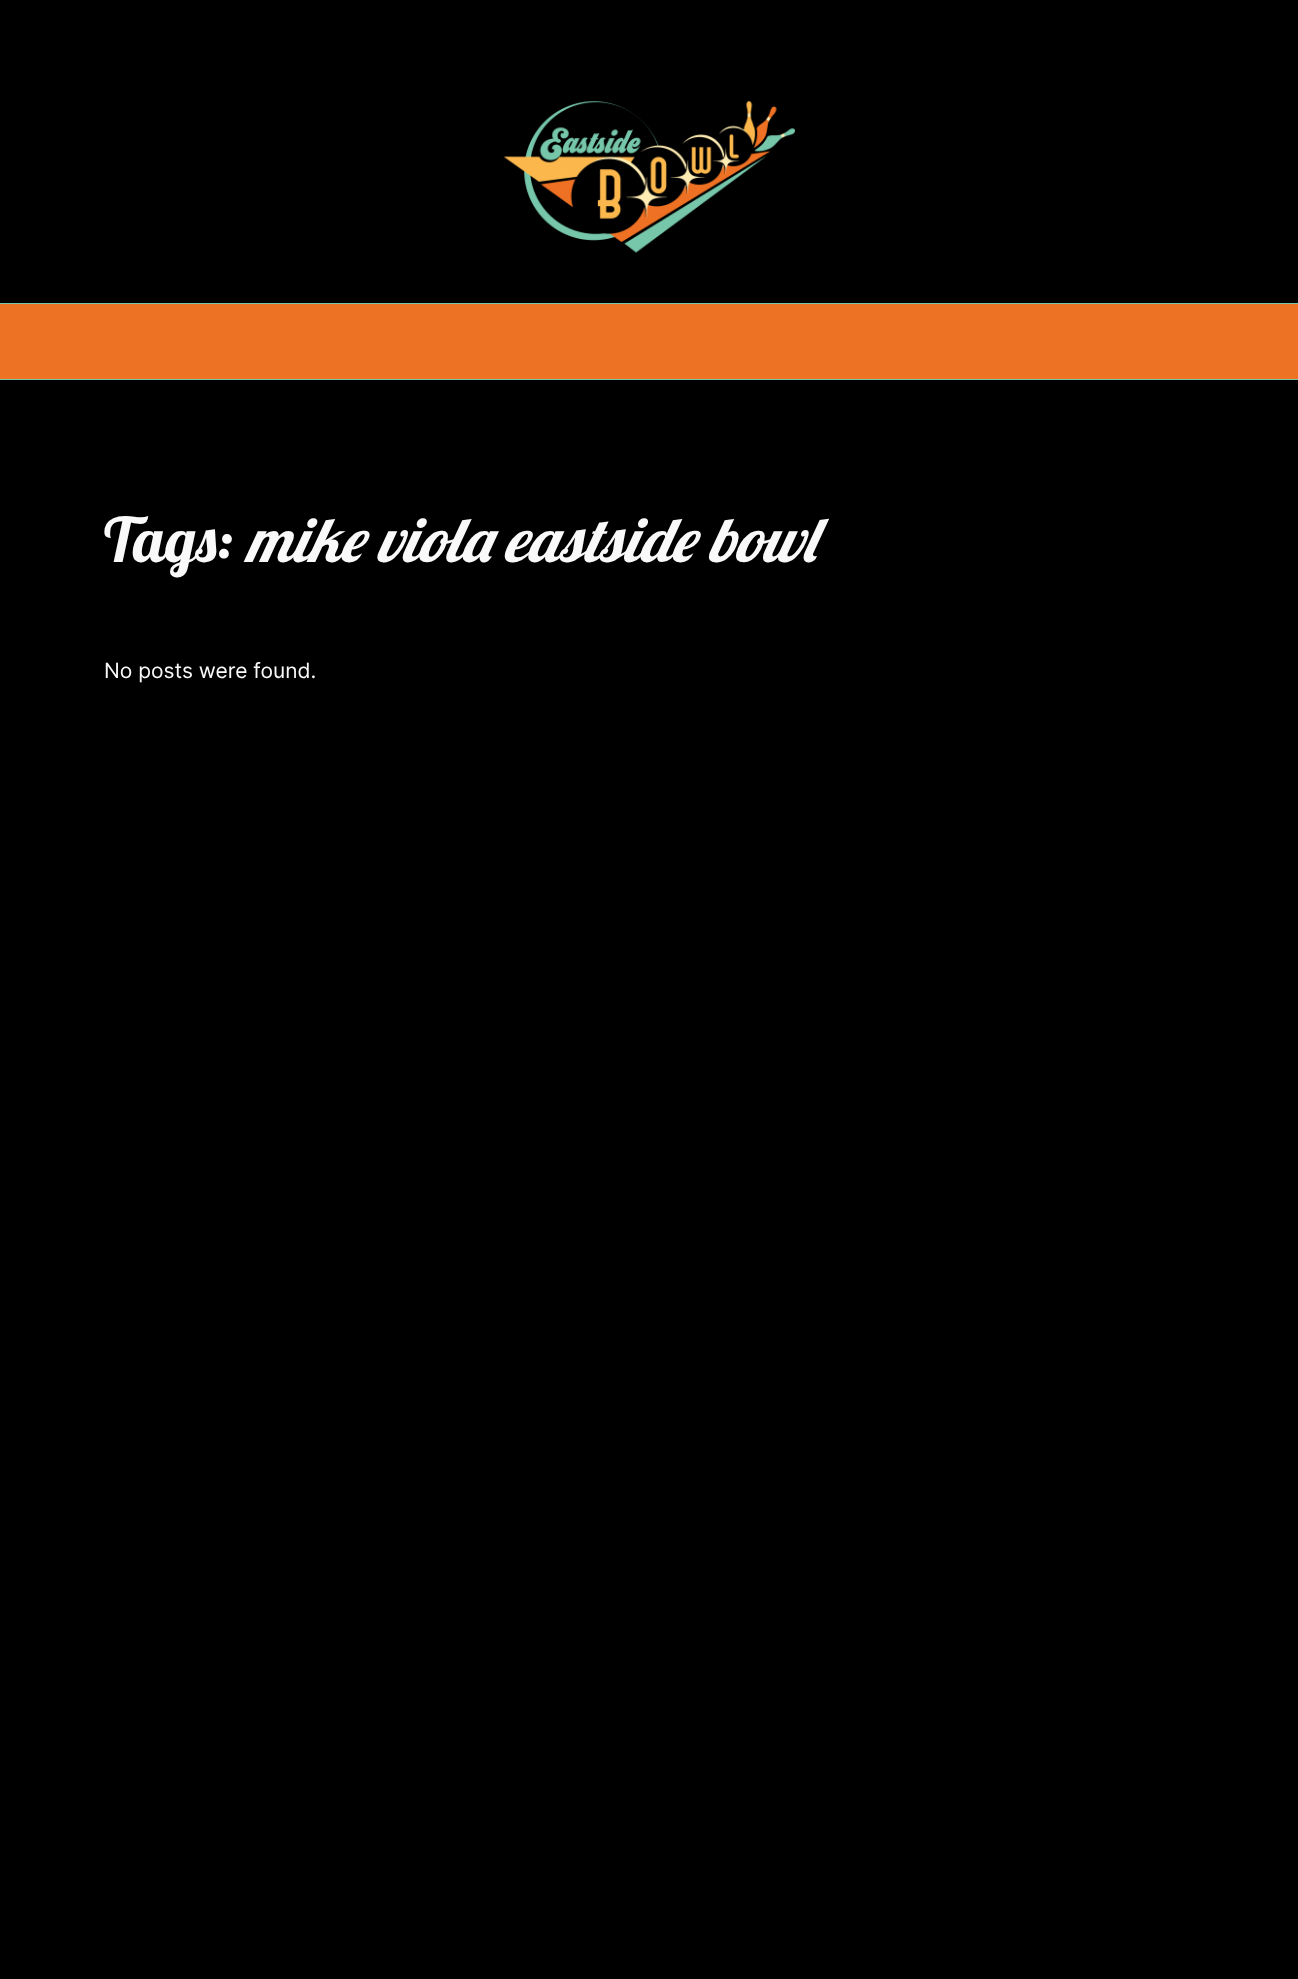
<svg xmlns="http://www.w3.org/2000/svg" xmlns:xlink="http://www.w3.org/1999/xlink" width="1298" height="1979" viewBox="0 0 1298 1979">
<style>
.cls-1{font:61.5px Lobster;fill:#f9f9f9}
.cls-2{font:italic 61.5px Lobster;fill:#f9f9f9}
.cls-3{font:21px Inter;fill:#f9f9f9}
</style>
<rect width="100%" height="100%" fill="#000000"/>
<image xlink:href="image0.png" x="503" y="101" width="292" height="152"/>
<rect fill="#ee7223" x="0" y="304" width="1298" height="75"/>
<rect fill="#77c6ab" x="0" y="303" width="1298" height="1"/>
<rect fill="#77c6ab" x="0" y="379" width="1298" height="1"/>
<text class="cls-1" x="104" y="562">Tags:</text>
<text class="cls-2" x="246" y="562">mike viola eastside bowl</text>
<text class="cls-3" x="104" y="678">No posts were found.</text>
</svg>
